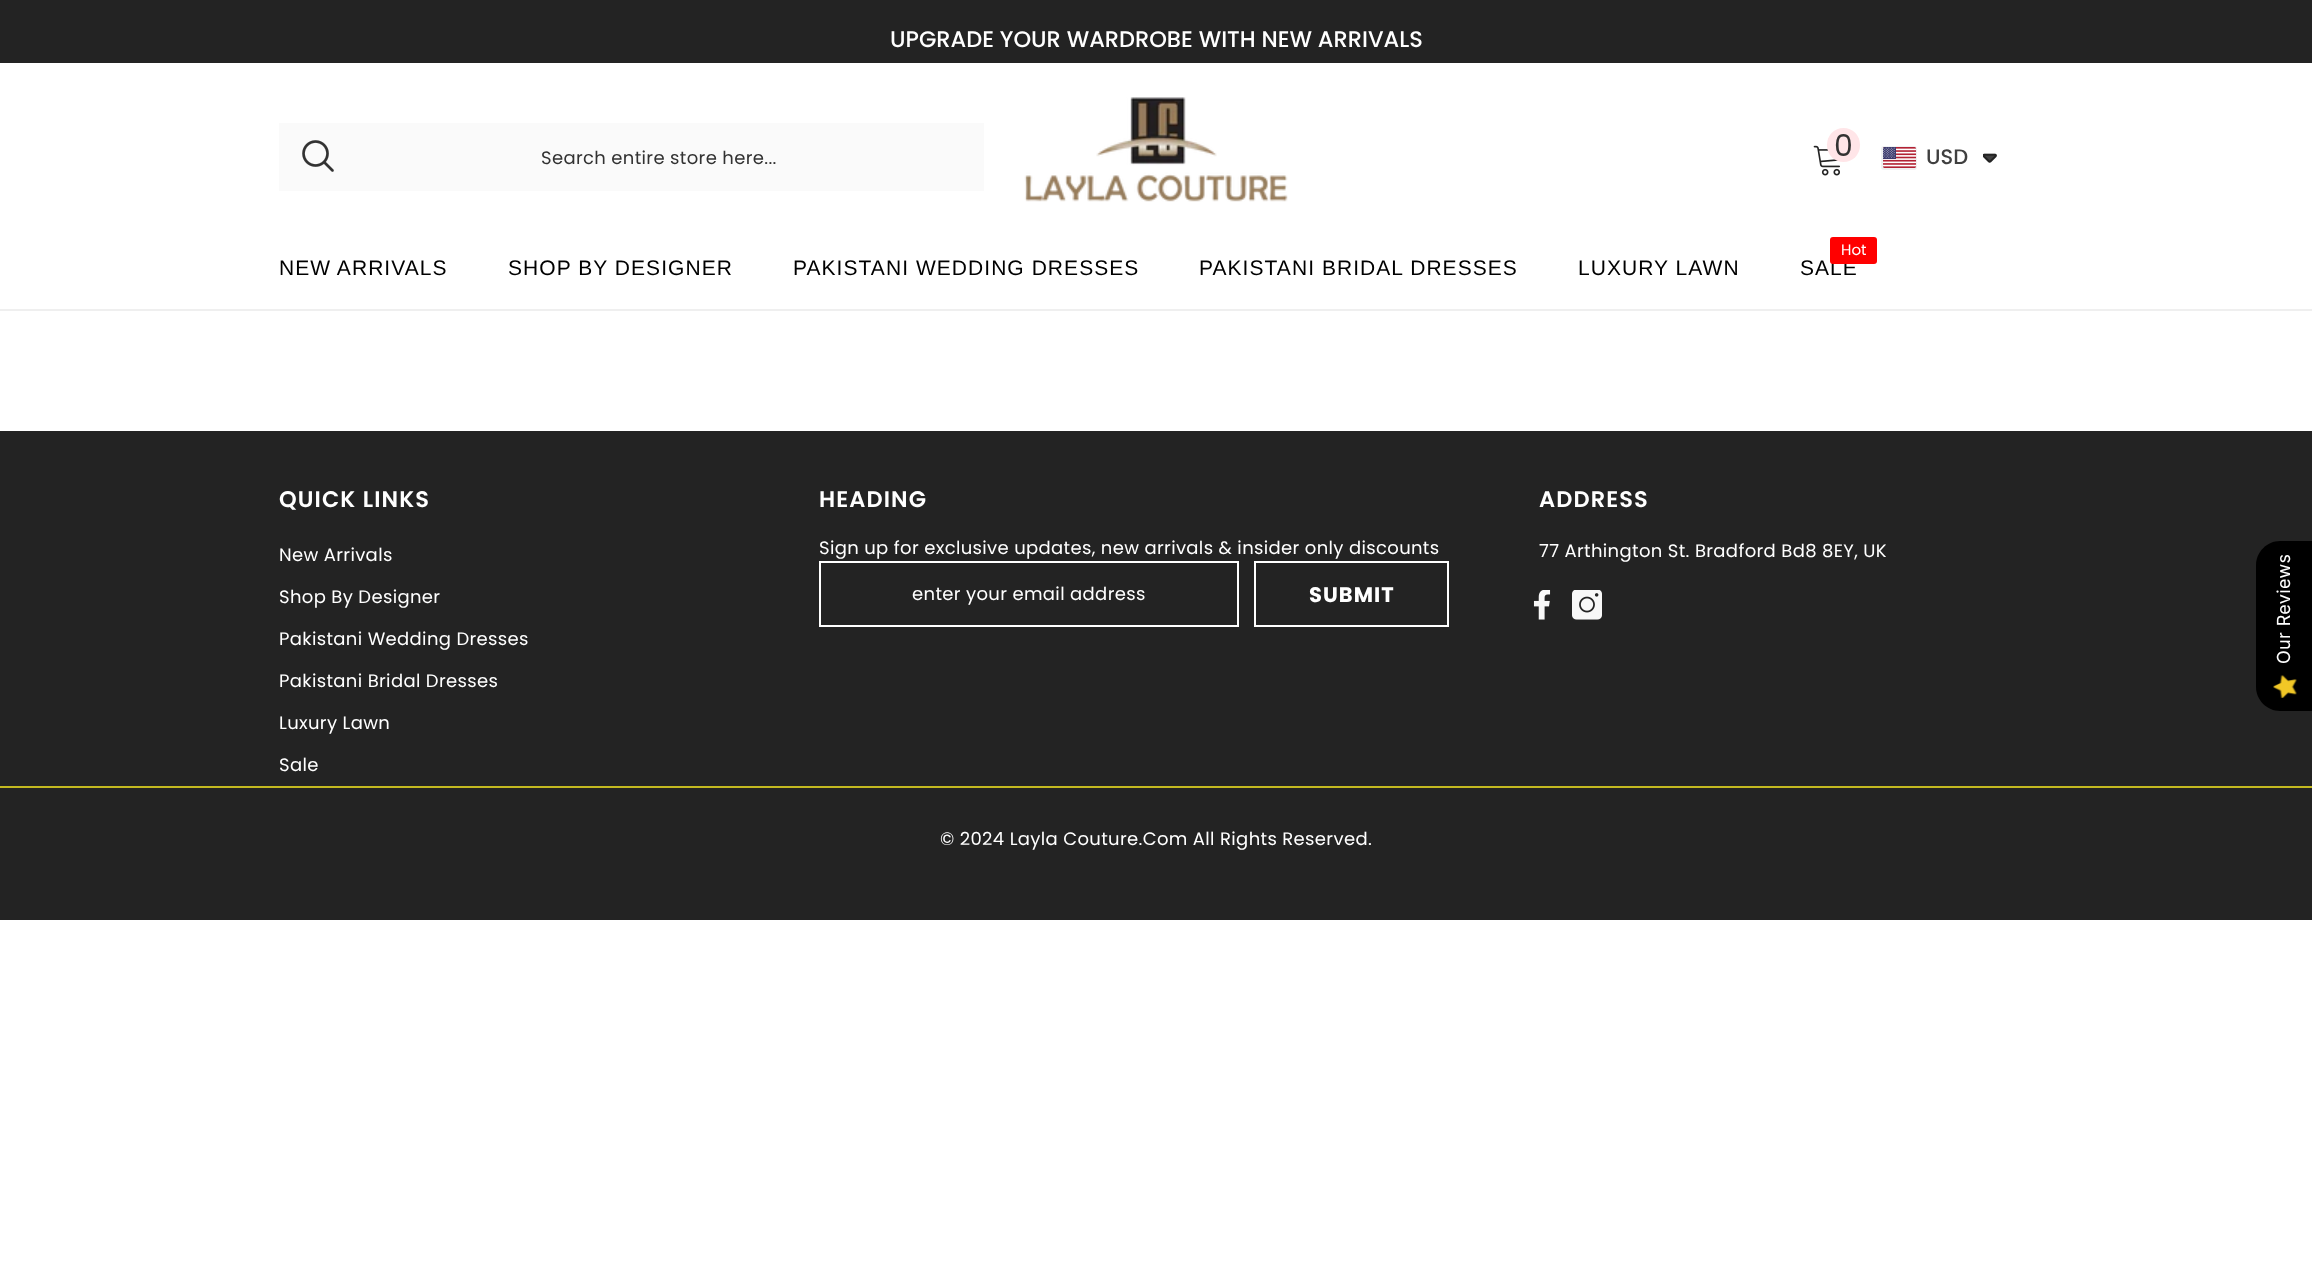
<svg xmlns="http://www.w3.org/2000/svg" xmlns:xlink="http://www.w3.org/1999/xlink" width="2312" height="1264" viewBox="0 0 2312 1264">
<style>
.cls-1{font:500 22.5px Poppins;fill:#ffffff}
.cls-2{font:18px Poppins;letter-spacing:0.35px;fill:#323232}
.cls-3{font:30px Poppins;letter-spacing:1px;fill:#323232}
.cls-4{font:500 21px Poppins;fill:#404040}
.cls-5{font:21px Liberation Sans;letter-spacing:1.05px;fill:#000000}
.cls-6{font:15px Poppins;fill:#ffffff}
.cls-7{font:600 22.5px Poppins;letter-spacing:1.1px;fill:#ffffff}
.cls-8{font:18px Poppins;letter-spacing:0.35px;fill:#ffffff}
.cls-9{font:bold 21px Poppins;letter-spacing:1.05px;fill:#ffffff}
.cls-10{font:18px Inter;letter-spacing:0.35px;fill:#ffffff}
</style>
<rect width="100%" height="100%" fill="#ffffff"/>
<rect fill="#232323" x="0" y="0" width="2312" height="63"/>
<rect fill="#efefef" x="0" y="309" width="2312" height="2"/>
<rect fill="#fafafa" x="279" y="123" width="705" height="68"/>
<image xlink:href="image0.png" x="302" y="140" width="32" height="32"/>
<image xlink:href="image1.png" x="1024" y="97" width="264" height="105"/>
<image xlink:href="image2.png" x="1813" y="145" width="27" height="31"/>
<rect fill="#ffe5e8" x="1827" y="128" width="33" height="34" rx="16.5"/>
<rect fill="none" stroke="#f0f1f2" stroke-width="2" x="1882" y="147" width="34" height="22" rx="2"/>
<image xlink:href="image3.png" x="1883" y="147" width="33" height="21"/>
<image xlink:href="image4.png" x="1983" y="153" width="14" height="10"/>
<rect fill="#232323" x="0" y="431" width="2312" height="355"/>
<rect fill="none" stroke="#ffffff" stroke-width="2" x="820" y="562" width="418" height="64"/>
<rect fill="none" stroke="#ffffff" stroke-width="2" x="1255" y="562" width="193" height="64"/>
<image xlink:href="image5.png" x="1533" y="590" width="18" height="30"/>
<image xlink:href="image6.png" x="1572" y="590" width="30" height="30"/>
<rect fill="#232323" x="0" y="788" width="2312" height="132"/>
<rect fill="#c3b920" x="0" y="786" width="2312" height="2"/>
<path fill="#000000" d="M2256 687V565C2256 552 2267 541 2280 541H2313V711H2280C2267 711 2256 700 2256 687Z"/>
<image xlink:href="image7.png" x="2273" y="675" width="24" height="23"/>
<text class="cls-1" x="890" y="47">UPGRADE YOUR WARDROBE WITH NEW ARRIVALS</text>
<text class="cls-2" x="541" y="164">Search entire store here...</text>
<text class="cls-3" x="1834" y="156">0</text>
<text class="cls-4" x="1926" y="164">USD</text>
<text class="cls-5" x="279" y="275">NEW ARRIVALS</text>
<text class="cls-5" x="508" y="275">SHOP BY DESIGNER</text>
<text class="cls-5" x="793" y="275">PAKISTANI WEDDING DRESSES</text>
<text class="cls-5" x="1199" y="275">PAKISTANI BRIDAL DRESSES</text>
<text class="cls-5" x="1578" y="275">LUXURY LAWN</text>
<text class="cls-5" x="1800" y="275">SALE</text>
<rect fill="#ff0000" x="1830" y="237" width="47" height="27" rx="3"/>
<text class="cls-6" x="1841" y="255">Hot</text>
<text class="cls-7" x="279" y="507">QUICK LINKS</text>
<text class="cls-8" x="279" y="561">New Arrivals</text>
<text class="cls-8" x="279" y="603">Shop By Designer</text>
<text class="cls-8" x="279" y="645">Pakistani Wedding Dresses</text>
<text class="cls-8" x="279" y="687">Pakistani Bridal Dresses</text>
<text class="cls-8" x="279" y="729">Luxury Lawn</text>
<text class="cls-8" x="279" y="771">Sale</text>
<text class="cls-7" x="819" y="507">HEADING</text>
<text class="cls-8" x="819" y="554">Sign up for exclusive updates, new arrivals &amp; insider only discounts</text>
<text class="cls-8" x="912" y="600">enter your email address</text>
<text class="cls-9" x="1309" y="602">SUBMIT</text>
<text class="cls-7" x="1539" y="507">ADDRESS</text>
<text class="cls-8" x="1539" y="557">77 Arthington St. Bradford Bd8 8EY, UK</text>
<text class="cls-8" x="940" y="845">© 2024 Layla Couture.Com All Rights Reserved.</text>
<text class="cls-10" x="2290" y="664" transform="rotate(-90 2290 664)">Our Reviews</text>
</svg>
